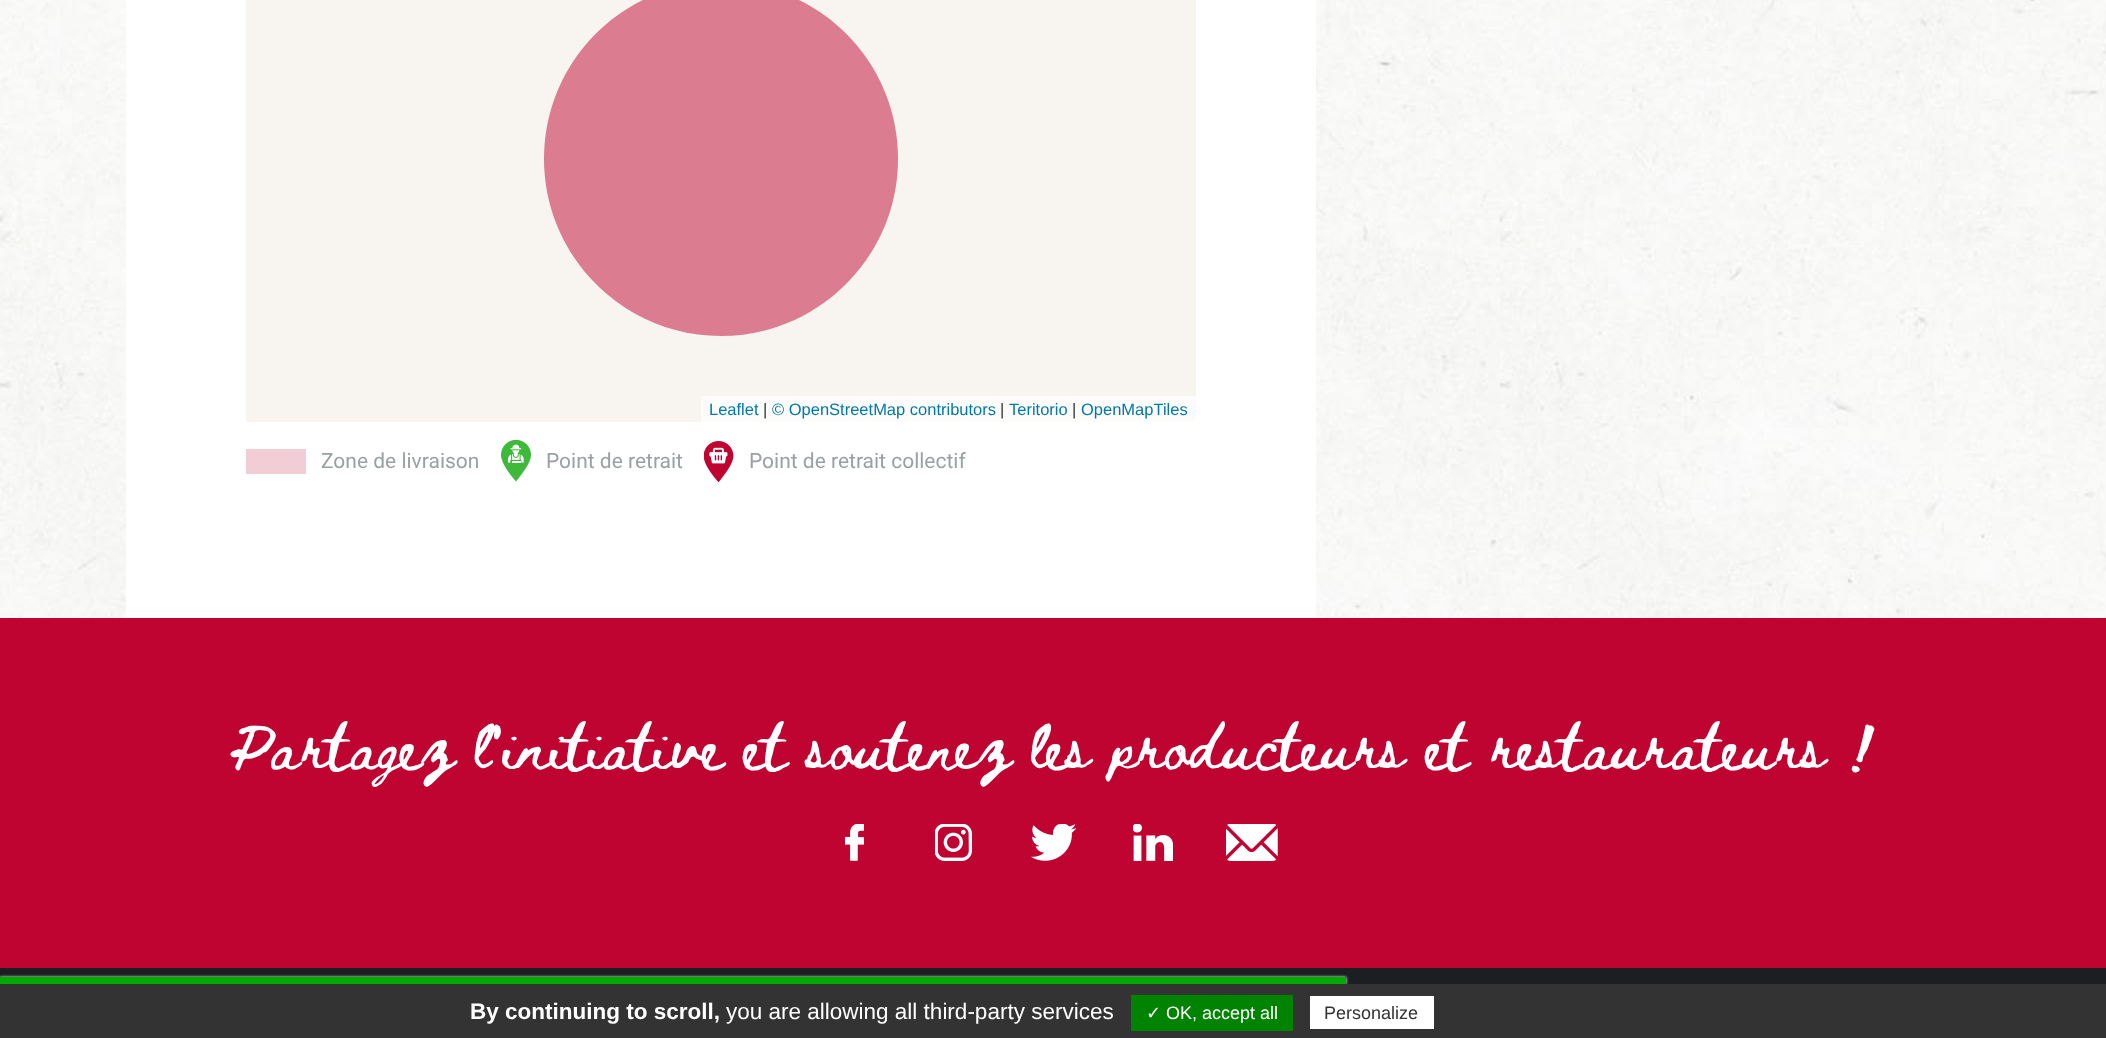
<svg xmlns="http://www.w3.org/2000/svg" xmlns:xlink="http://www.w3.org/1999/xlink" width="2106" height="1038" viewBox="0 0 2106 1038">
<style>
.cls-1{font:16.5px Liberation Sans;fill:#0078a8}
.cls-2{font:16.5px Liberation Sans;fill:#333333}
.cls-3{font:21px Roboto;fill:#9ba0a2}
.cls-4{font:45.6px Beth Ellen;fill:#ffffff}
.cls-5{font:bold 22.5px Liberation Sans;fill:#ffffff}
.cls-6{font:22.5px Liberation Sans;fill:#ffffff}
.cls-7{font:18px DejaVu Sans;fill:#ffffff}
.cls-8{font:18px Liberation Sans;fill:#ffffff}
.cls-9{font:18px Liberation Sans;fill:#333333}
</style>
<rect width="100%" height="100%" fill="#ffffff"/>
<image xlink:href="image0.png" x="0" y="0" width="2106" height="618"/>
<rect fill="#ffffff" x="126" y="0" width="1190" height="618"/>
<rect fill="#f8f4f0" x="246" y="0" width="950" height="422"/>
<path fill="#dc7c91" fill-rule="evenodd" d="M544 159C544 256 623 336 721 336C819 336 898 256 898 159C898 61 819-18 721-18C623-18 544 61 544 159"/>
<rect fill="#fdfcfb" x="701" y="396" width="495" height="26"/>
<rect fill="#f2cdd6" x="246" y="449" width="60" height="25"/>
<image xlink:href="image1.png" x="501" y="440" width="30" height="42"/>
<image xlink:href="image2.png" x="704" y="441" width="30" height="41"/>
<rect fill="#c00431" x="0" y="618" width="2106" height="350"/>
<image xlink:href="image3.png" x="845" y="824" width="19" height="37"/>
<image xlink:href="image4.png" x="935" y="824" width="37" height="37"/>
<image xlink:href="image5.png" x="1031" y="824" width="45" height="37"/>
<image xlink:href="image6.png" x="1133" y="824" width="40" height="37"/>
<image xlink:href="image7.png" x="1226" y="824" width="52" height="37"/>
<rect fill="#1b1f21" x="0" y="968" width="2106" height="16"/>
<rect fill="#555555" filter="blur(1.5px)" x="0" y="978" width="1346" height="8"/>
<rect fill="#ffffff" filter="blur(1.5px)" x="0" y="977" width="1346" height="7"/>
<rect fill="#00aa00" x="0" y="977" width="1346" height="7"/>
<rect fill="#333333" x="0" y="984" width="2106" height="54"/>
<rect fill="#008300" x="1131" y="995" width="162" height="36"/>
<rect fill="#ffffff" x="1310" y="996" width="124" height="33"/>
<text class="cls-1" x="709" y="415">Leaflet</text>
<text class="cls-2" x="763" y="415">|</text>
<text class="cls-1" x="772" y="415">© OpenStreetMap contributors</text>
<text class="cls-2" x="1000" y="415">|</text>
<text class="cls-1" x="1009" y="415">Teritorio</text>
<text class="cls-2" x="1072" y="415">|</text>
<text class="cls-1" x="1081" y="415">OpenMapTiles</text>
<text class="cls-3" x="321" y="468">Zone de livraison</text>
<text class="cls-3" x="546" y="468">Point de retrait</text>
<text class="cls-3" x="749" y="468">Point de retrait collectif</text>
<text class="cls-4" x="230" y="768">Partagez l'initiative et soutenez les producteurs et restaurateurs !</text>
<text class="cls-5" x="470" y="1019">By continuing to scroll,</text>
<text class="cls-6" x="726" y="1019">you are allowing all third-party services</text>
<text class="cls-7" x="1146" y="1019">✓</text>
<text class="cls-8" x="1166" y="1019">OK, accept all</text>
<text class="cls-9" x="1324" y="1019">Personalize</text>
</svg>
